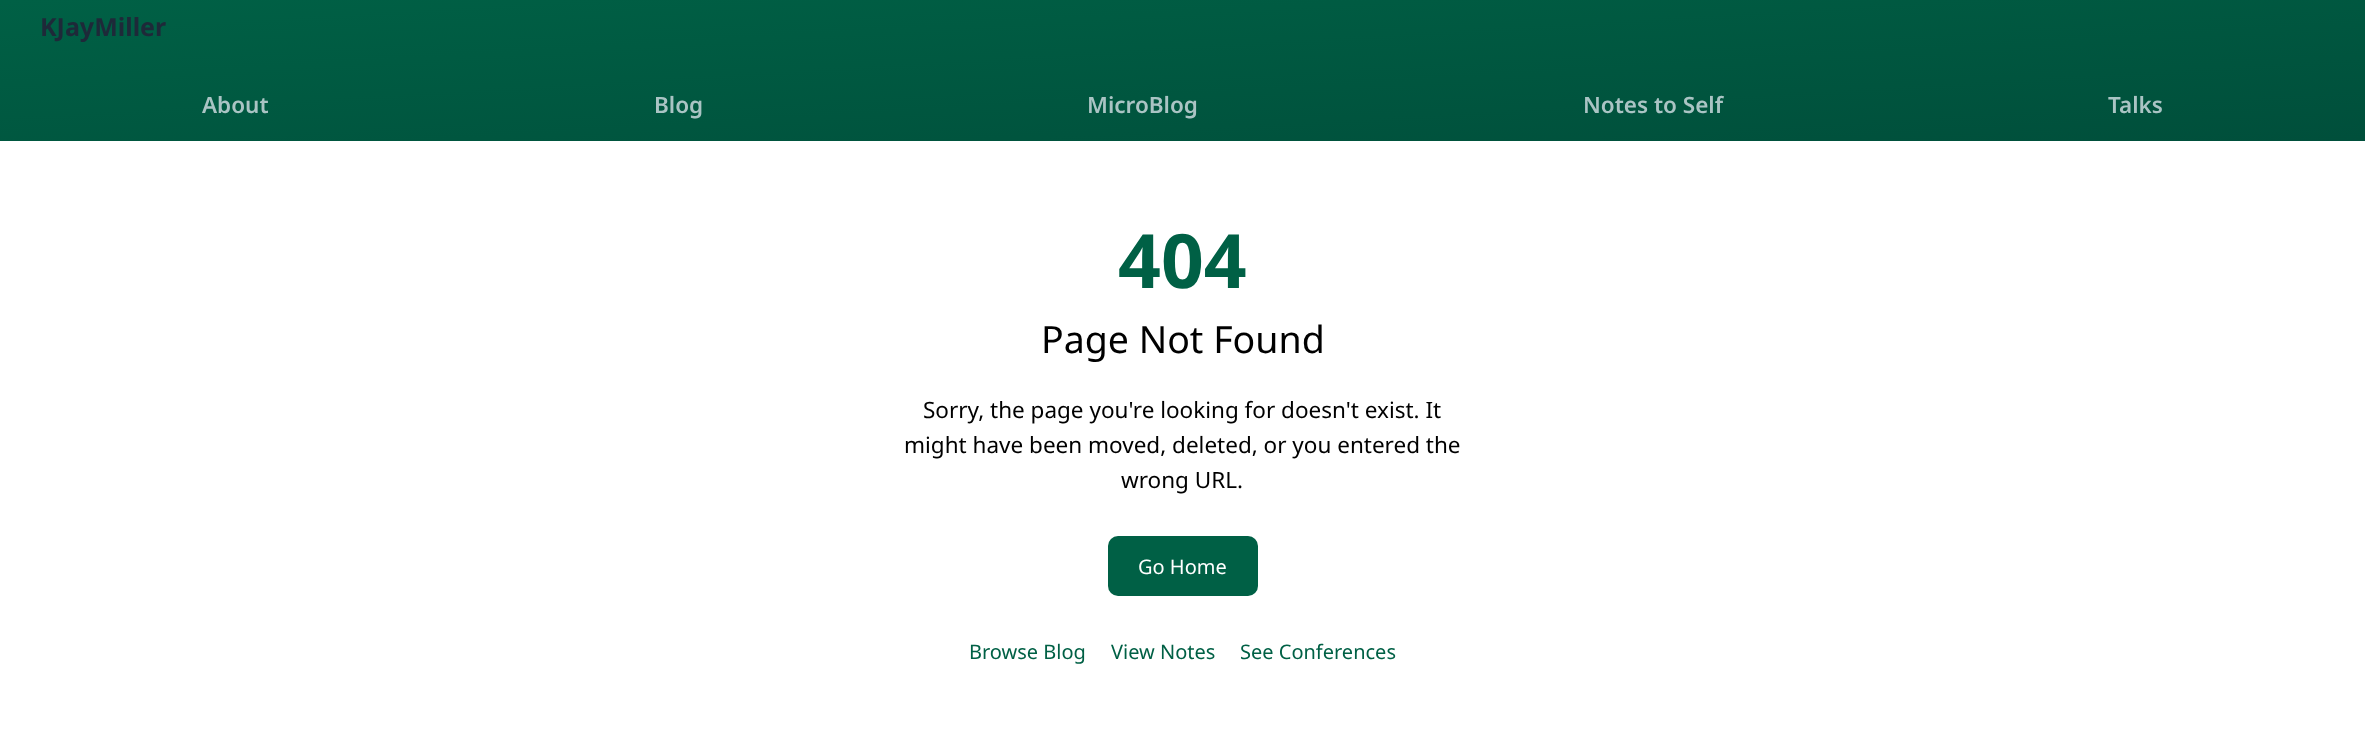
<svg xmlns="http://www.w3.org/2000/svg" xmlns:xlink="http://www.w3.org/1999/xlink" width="2365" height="737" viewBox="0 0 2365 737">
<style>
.cls-1{font:bold 25px Noto Sans;fill:#1e2939}
.cls-2{font:600 22.5px Noto Sans;fill:#aac4c4}
.cls-3{font:bold 75px Noto Sans;fill:#006045}
.cls-4{font:37.5px Noto Sans;fill:#000000}
.cls-5{font:22.5px Noto Sans;fill:#000000}
.cls-6{font:20px Noto Sans;fill:#ffffff}
.cls-7{font:20px Noto Sans;fill:#006045}
</style>
<defs>
<linearGradient id="g1" gradientUnits="userSpaceOnUse" x1="1174" y1="-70" x2="1191" y2="211"><stop offset="0" stop-color="#006045"/><stop offset="1" stop-color="#004f3b"/></linearGradient>
</defs>
<rect width="100%" height="100%" fill="#ffffff"/>
<rect fill="url(#g1)" x="0" y="0" width="2365" height="141"/>
<rect fill="#006045" x="1108" y="536" width="150" height="60" rx="10"/>
<text class="cls-1" x="40" y="36">KJayMiller</text>
<text class="cls-2" x="202" y="113">About</text>
<text class="cls-2" x="654" y="113">Blog</text>
<text class="cls-2" x="1087" y="113">MicroBlog</text>
<text class="cls-2" x="1583" y="113">Notes to Self</text>
<text class="cls-2" x="2108" y="113">Talks</text>
<text class="cls-3" x="1118" y="288">404</text>
<text class="cls-4" x="1041" y="353">Page Not Found</text>
<text class="cls-5" x="923" y="418">Sorry, the page you're looking for doesn't exist. It</text>
<text class="cls-5" x="904" y="453">might have been moved, deleted, or you entered the</text>
<text class="cls-5" x="1121" y="488">wrong URL.</text>
<text class="cls-6" x="1138" y="574">Go Home</text>
<text class="cls-7" x="969" y="659">Browse Blog</text>
<text class="cls-7" x="1111" y="659">View Notes</text>
<text class="cls-7" x="1240" y="659">See Conferences</text>
</svg>
